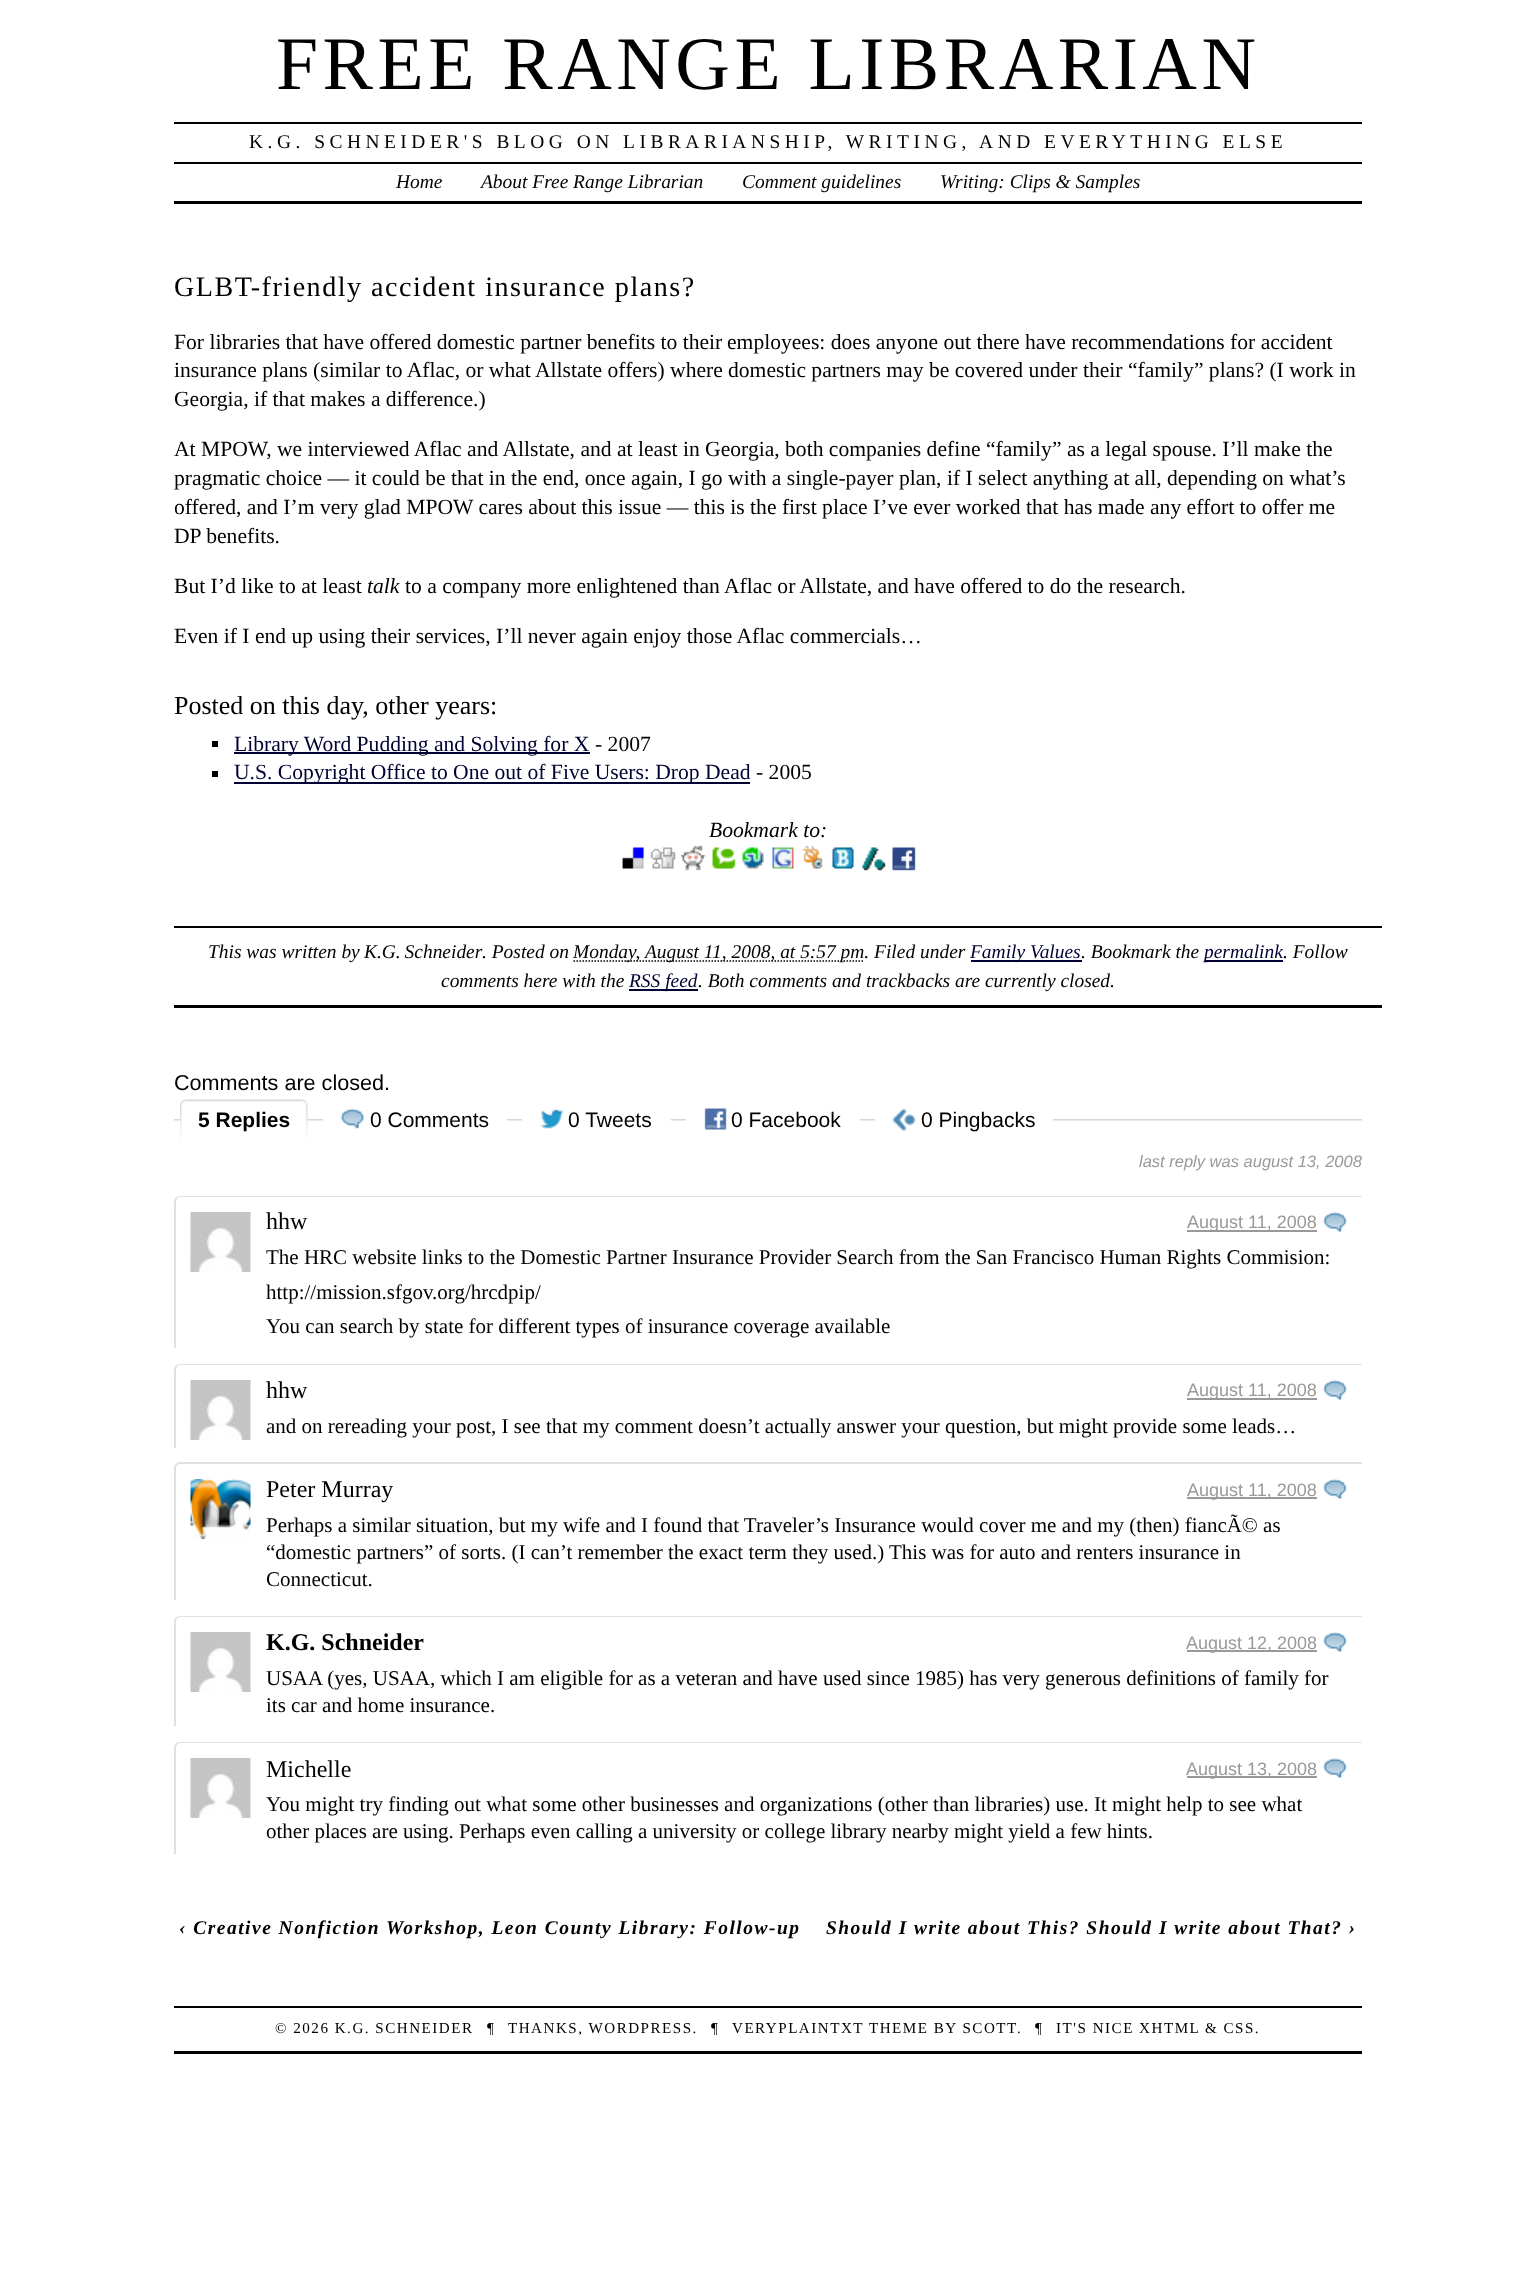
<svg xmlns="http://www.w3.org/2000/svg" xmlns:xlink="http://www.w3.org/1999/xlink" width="1535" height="2295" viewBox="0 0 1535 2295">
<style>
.cls-1{font:75.6px Liberation Serif;letter-spacing:4.5px;fill:#000000}
.cls-2{font:19.45px Liberation Serif;letter-spacing:4.5px;fill:#000000}
.cls-3{font:italic 19.45px Liberation Serif;fill:#000000}
.cls-4{font:28.1px Liberation Serif;letter-spacing:1.5px;fill:#000000}
.cls-5{font:21.6px Liberation Serif;fill:#000000}
.cls-6{font:italic 21.6px Liberation Serif;fill:#000000}
.cls-7{font:26px Liberation Serif;fill:#000000}
.cls-8{font:21.6px Liberation Serif;fill:#000033}
.cls-9{font:italic 19.45px Liberation Serif;fill:#000033}
.cls-10{font:21.6px Liberation Sans;fill:#000000}
.cls-11{font:bold 21px Liberation Sans;fill:#000000}
.cls-12{font:21px Liberation Sans;fill:#000000}
.cls-13{font:italic 16.5px Liberation Sans;fill:#999999}
.cls-14{font:24px Liberation Serif;fill:#000000}
.cls-15{font:18px Liberation Sans;fill:#999999}
.cls-16{font:21px Liberation Serif;fill:#000000}
.cls-17{font:bold 24px Liberation Serif;fill:#000000}
.cls-18{font:italic bold 19.45px Liberation Serif;letter-spacing:1.5px;fill:#000000}
.cls-19{font:15.1px Liberation Serif;letter-spacing:1.5px;fill:#000000}
</style>
<rect width="100%" height="100%" fill="#ffffff"/>
<rect fill="#000000" x="174" y="122" width="1188" height="2"/>
<rect fill="#000000" x="174" y="162" width="1188" height="2"/>
<rect fill="#000000" x="174" y="201" width="1188" height="3"/>
<rect fill="#000000" x="212" y="741" width="6" height="6"/>
<rect fill="#000033" x="234" y="752" width="356" height="2"/>
<rect fill="#000000" x="212" y="771" width="6" height="6"/>
<rect fill="#000033" x="234" y="782" width="516" height="2"/>
<image xlink:href="image0.png" x="622" y="847" width="22" height="22"/>
<image xlink:href="image1.png" x="650" y="847" width="26" height="22"/>
<image xlink:href="image2.png" x="680" y="845" width="26" height="26"/>
<image xlink:href="image3.png" x="712" y="847" width="24" height="22"/>
<image xlink:href="image4.png" x="742" y="847" width="22" height="22"/>
<image xlink:href="image5.png" x="772" y="847" width="22" height="22"/>
<image xlink:href="image6.png" x="802" y="845" width="21" height="24"/>
<image xlink:href="image7.png" x="832" y="847" width="22" height="22"/>
<image xlink:href="image8.png" x="862" y="847" width="24" height="24"/>
<image xlink:href="image9.png" x="892" y="847" width="24" height="24"/>
<rect fill="#000000" x="174" y="926" width="1208" height="2"/>
<rect fill="#000000" x="174" y="1005" width="1208" height="3"/>
<path fill="none" stroke="#000000" stroke-width="1.5" stroke-dasharray="1.5 1.5" d="M573.5 961H864.5"/>
<rect fill="#000033" x="971" y="960" width="111" height="2"/>
<rect fill="#000033" x="1205" y="960" width="78" height="2"/>
<rect fill="#000033" x="629" y="989" width="69" height="2"/>
<image xlink:href="image10.png" x="174" y="1119" width="1188" height="2"/>
<image xlink:href="image11.png" x="180" y="1099" width="128" height="41"/>
<image xlink:href="image12.png" x="186" y="1099" width="122" height="40"/>
<rect fill="#ffffff" x="323" y="1119" width="184" height="2"/>
<image xlink:href="image13.png" x="340" y="1108" width="25" height="21"/>
<rect fill="#ffffff" x="522" y="1119" width="149" height="2"/>
<image xlink:href="image14.png" x="540" y="1109" width="24" height="20"/>
<rect fill="#ffffff" x="686" y="1119" width="174" height="2"/>
<image xlink:href="image15.png" x="704" y="1108" width="23" height="22"/>
<rect fill="#ffffff" x="875" y="1119" width="178" height="2"/>
<image xlink:href="image16.png" x="892" y="1108" width="24" height="24"/>
<path fill="#e1e1e1" fill-rule="evenodd" d="M180 1196H1362V1348H174V1202C174 1198 177 1196 180 1196ZM180 1197H1362V1348H176V1202C176 1199 178 1197 180 1197Z"/>
<image xlink:href="image17.png" x="190" y="1212" width="61" height="60"/>
<image xlink:href="image18.png" x="1323" y="1211" width="24" height="21"/>
<rect fill="#999999" x="1187" y="1230" width="130" height="2"/>
<path fill="#e1e1e1" fill-rule="evenodd" d="M180 1364H1362V1448H174V1370C174 1366 177 1364 180 1364ZM180 1365H1362V1448H176V1370C176 1367 178 1365 180 1365Z"/>
<image xlink:href="image17.png" x="190" y="1380" width="61" height="60"/>
<image xlink:href="image18.png" x="1323" y="1379" width="24" height="21"/>
<rect fill="#999999" x="1187" y="1398" width="130" height="2"/>
<path fill="#e1e1e1" fill-rule="evenodd" d="M180 1462H1362V1600H174V1468C174 1465 177 1462 180 1462ZM180 1464H1362V1600H176V1468C176 1466 178 1464 180 1464Z"/>
<image xlink:href="image19.png" x="190" y="1479" width="61" height="60"/>
<image xlink:href="image18.png" x="1323" y="1478" width="24" height="21"/>
<rect fill="#999999" x="1187" y="1497" width="130" height="2"/>
<path fill="#e1e1e1" fill-rule="evenodd" d="M180 1616H1362V1726H174V1622C174 1618 177 1616 180 1616ZM180 1617H1362V1726H176V1622C176 1619 178 1617 180 1617Z"/>
<image xlink:href="image17.png" x="190" y="1632" width="61" height="60"/>
<image xlink:href="image18.png" x="1323" y="1631" width="24" height="21"/>
<rect fill="#999999" x="1187" y="1650" width="130" height="2"/>
<path fill="#e1e1e1" fill-rule="evenodd" d="M180 1742H1362V1854H174V1748C174 1744 177 1742 180 1742ZM180 1743H1362V1854H176V1748C176 1745 178 1743 180 1743Z"/>
<image xlink:href="image17.png" x="190" y="1758" width="61" height="60"/>
<image xlink:href="image18.png" x="1323" y="1757" width="24" height="21"/>
<rect fill="#999999" x="1187" y="1776" width="130" height="2"/>
<rect fill="#000000" x="174" y="2006" width="1188" height="2"/>
<rect fill="#000000" x="174" y="2051" width="1188" height="3"/>
<text class="cls-1" x="276" y="89">FREE RANGE LIBRARIAN</text>
<text class="cls-2" x="249" y="148">K.G. SCHNEIDER'S BLOG ON LIBRARIANSHIP, WRITING, AND EVERYTHING ELSE</text>
<text class="cls-3" x="396" y="188">Home</text>
<text class="cls-3" x="481" y="188">About Free Range Librarian</text>
<text class="cls-3" x="742" y="188">Comment guidelines</text>
<text class="cls-3" x="940" y="188">Writing: Clips &amp; Samples</text>
<text class="cls-4" x="174" y="296">GLBT-friendly accident insurance plans?</text>
<text class="cls-5" x="174" y="349">For libraries that have offered domestic partner benefits to their</text>
<text class="cls-5" x="727" y="349">employees: does anyone out there have recommendations for accident</text>
<text class="cls-5" x="174" y="377">insurance plans (similar to Aflac, or what Allstate offers) where</text>
<text class="cls-5" x="728" y="377">domestic partners may be covered under their “family” plans? (I work in</text>
<text class="cls-5" x="174" y="406">Georgia, if that makes a difference.)</text>
<text class="cls-5"><tspan x="174" y="456">At MPOW, we interviewed Aflac and Allstate, and at least in Georgia, both companies define “family” as a legal spouse. I’ll make the</tspan><tspan x="174" y="485">pragmatic choice — it could be that in the end, once again, I go with a single-payer plan, if I select anything at all, depending on what’s</tspan><tspan x="174" y="514">offered, and I’m very glad MPOW cares about this issue — this is the first place I’ve ever worked that has made any effort to offer me</tspan><tspan x="174" y="543">DP benefits.</tspan></text>
<text class="cls-5" x="174" y="593">But I’d like to at least</text>
<text class="cls-6" x="367" y="593">talk</text>
<text class="cls-5" x="405" y="593">to a company more enlightened than Aflac or Allstate, and have offered to do the research.</text>
<text class="cls-5" x="174" y="643">Even if I end up using their services, I’ll never again enjoy those Aflac commercials…</text>
<text class="cls-7" x="174" y="714">Posted on this day, other years:</text>
<text class="cls-8" x="234" y="751">Library Word Pudding and Solving for X</text>
<text class="cls-5" x="595" y="751">- 2007</text>
<text class="cls-8" x="234" y="779">U.S. Copyright Office to One out of Five Users: Drop Dead</text>
<text class="cls-5" x="756" y="779">- 2005</text>
<text class="cls-6" x="709" y="837">Bookmark to:</text>
<text class="cls-3" x="208" y="958">This was written by</text>
<text class="cls-3" x="364" y="958" word-spacing="-1">K.G. Schneider</text>
<text class="cls-3" x="482" y="958">. Posted on</text>
<text class="cls-3" x="573" y="958">Monday, August 11, 2008, at 5:57 pm. Filed under</text>
<text class="cls-9" x="970" y="958">Family Values</text>
<text class="cls-3" x="1081" y="958">. Bookmark the</text>
<text class="cls-9" x="1204" y="958">permalink</text>
<text class="cls-3" x="1283" y="958">. Follow</text>
<text class="cls-3" x="441" y="987">comments here with the</text>
<text class="cls-9" x="629" y="987">RSS feed</text>
<text class="cls-3" x="698" y="987">. Both comments and trackbacks are currently closed.</text>
<text class="cls-10" x="174" y="1090">Comments are closed.</text>
<text class="cls-11" x="198" y="1127">5 Replies</text>
<text class="cls-12" x="370" y="1127">0 Comments</text>
<text class="cls-12" x="568" y="1127">0 Tweets</text>
<text class="cls-12" x="731" y="1127">0 Facebook</text>
<text class="cls-12" x="921" y="1127">0 Pingbacks</text>
<text class="cls-13" x="1139" y="1167">last reply was august 13, 2008</text>
<text class="cls-14" x="266" y="1229">hhw</text>
<text class="cls-15" x="1187" y="1228">August 11, 2008</text>
<text class="cls-16"><tspan x="266" y="1264">The HRC website links to the Domestic Partner Insurance Provider Search from the San Francisco Human Rights Commision:</tspan><tspan x="266" y="1299">http://mission.sfgov.org/hrcdpip/</tspan><tspan x="266" y="1333">You can search by state for different types of insurance coverage available</tspan></text>
<text class="cls-14" x="266" y="1398">hhw</text>
<text class="cls-15" x="1187" y="1396">August 11, 2008</text>
<text class="cls-16" x="266" y="1433">and on rereading your post, I see that my comment doesn’t actually answer your question, but might provide some leads…</text>
<text class="cls-14" x="266" y="1497">Peter Murray</text>
<text class="cls-15" x="1187" y="1496">August 11, 2008</text>
<text class="cls-16"><tspan x="266" y="1532">Perhaps a similar situation, but my wife and I found that Traveler’s Insurance would cover me and my (then) fiancÃ© as</tspan><tspan x="266" y="1559">“domestic partners” of sorts. (I can’t remember the exact term they used.)</tspan></text>
<text class="cls-16" x="889" y="1559">This was for auto and renters insurance in</text>
<text class="cls-16" x="266" y="1586">Connecticut.</text>
<text class="cls-17" x="266" y="1650">K.G. Schneider</text>
<text class="cls-15" x="1186" y="1649">August 12, 2008</text>
<text class="cls-16"><tspan x="266" y="1685">USAA (yes, USAA, which I am eligible for as a veteran and have used since 1985) has very generous definitions of family for</tspan><tspan x="266" y="1712">its car and home insurance.</tspan></text>
<text class="cls-14" x="266" y="1777">Michelle</text>
<text class="cls-15" x="1186" y="1775">August 13, 2008</text>
<text class="cls-16"><tspan x="266" y="1811">You might try finding out what some other businesses and organizations (other than libraries) use. It might help to see what</tspan><tspan x="266" y="1838">other places are using. Perhaps even calling a university or college library nearby might yield a few hints.</tspan></text>
<text class="cls-18" x="179" y="1934">‹ Creative Nonfiction Workshop, Leon County Library: Follow-up</text>
<text class="cls-18" x="826" y="1934">Should I write about This? Should I write about That? ›</text>
<text class="cls-19" x="275" y="2033">© 2026 K.G. SCHNEIDER</text>
<text class="cls-19" x="487" y="2033">¶</text>
<text class="cls-19" x="508" y="2033">THANKS, WORDPRESS.</text>
<text class="cls-19" x="711" y="2033">¶</text>
<text class="cls-19" x="732" y="2033">VERYPLAINTXT</text>
<text class="cls-19" x="869" y="2033">THEME BY SCOTT</text>
<text class="cls-19" x="1017" y="2033">.</text>
<text class="cls-19" x="1035" y="2033">¶</text>
<text class="cls-19" x="1056" y="2033">IT'S NICE XHTML</text>
<text class="cls-19" x="1205" y="2033">&amp; CSS.</text>
</svg>
